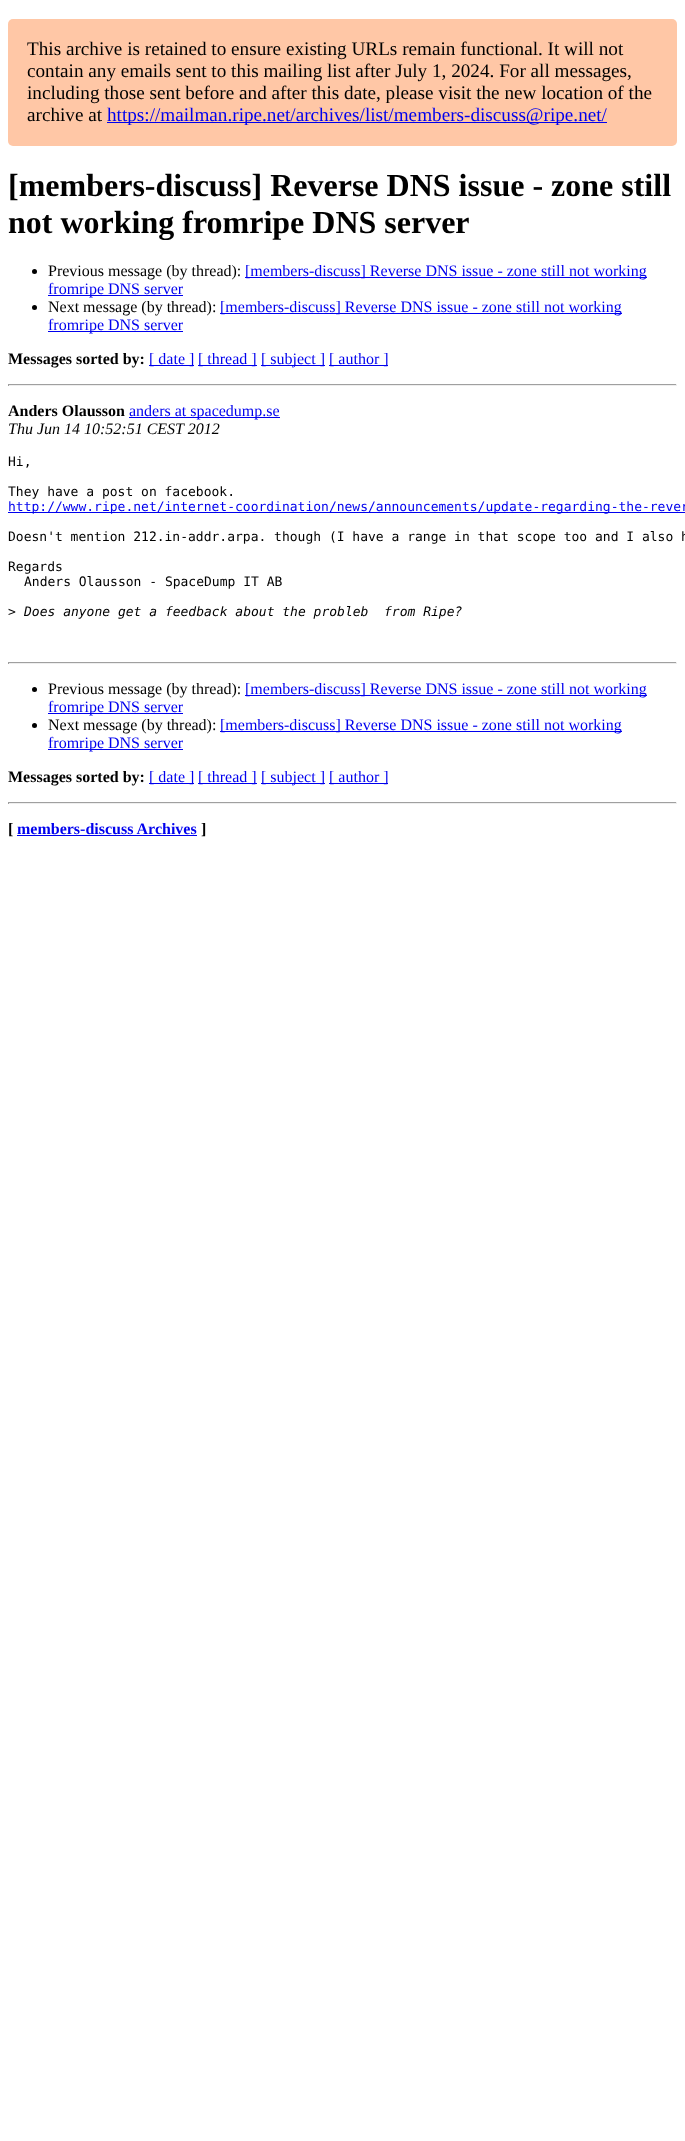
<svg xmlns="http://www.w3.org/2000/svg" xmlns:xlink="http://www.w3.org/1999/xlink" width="685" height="2141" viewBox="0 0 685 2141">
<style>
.cls-1{font:19.2px Liberation Serif;fill:#000000}
.cls-2{font:19.2px Liberation Serif;fill:#0000ee}
.cls-3{font:bold 32px Liberation Serif;fill:#000000}
.cls-4{font:16px Liberation Serif;fill:#000000}
.cls-5{font:16px Liberation Serif;fill:#0000ee}
.cls-6{font:bold 16px Liberation Serif;fill:#000000}
.cls-7{font:italic 16px Liberation Serif;fill:#000000}
.cls-8{font:13px DejaVu Sans Mono;fill:#000000}
.cls-9{font:13px DejaVu Sans Mono;fill:#0000ee}
.cls-10{font:italic 13px DejaVu Sans Mono;fill:#000000}
.cls-11{font:bold 16px Liberation Serif;fill:#0000ee}
</style>
<rect width="100%" height="100%" fill="#ffffff"/>
<rect fill="#ffc7a6" x="8" y="19" width="669" height="127" rx="5"/>
<rect fill="#0000ee" x="107" y="122" width="500" height="1"/>
<circle fill="#000000" cx="34.5" cy="271.5" r="2.5"/>
<rect fill="#0000ee" x="245" y="277" width="402" height="1"/>
<rect fill="#0000ee" x="48" y="295" width="135" height="1"/>
<circle fill="#000000" cx="34.5" cy="307.5" r="2.5"/>
<rect fill="#0000ee" x="220" y="313" width="402" height="1"/>
<rect fill="#0000ee" x="48" y="331" width="135" height="1"/>
<rect fill="#0000ee" x="149" y="365" width="45" height="1"/>
<rect fill="#0000ee" x="198" y="365" width="59" height="1"/>
<rect fill="#0000ee" x="261" y="365" width="64" height="1"/>
<rect fill="#0000ee" x="329" y="365" width="59" height="1"/>
<rect fill="#9f9f9f" x="8" y="384" width="669" height="1"/>
<rect fill="#eeeeee" x="676" y="384" width="1" height="2"/>
<rect fill="#eeeeee" x="8" y="385" width="669" height="1"/>
<rect fill="#9f9f9f" x="8" y="384" width="1" height="2"/>
<rect fill="#0000ee" x="129" y="417" width="151" height="1"/>
<rect fill="#0000ee" x="8" y="512" width="677" height="1"/>
<rect fill="#9f9f9f" x="8" y="662" width="669" height="1"/>
<rect fill="#eeeeee" x="676" y="662" width="1" height="2"/>
<rect fill="#eeeeee" x="8" y="663" width="669" height="1"/>
<rect fill="#9f9f9f" x="8" y="662" width="1" height="2"/>
<circle fill="#000000" cx="34.5" cy="689.5" r="2.5"/>
<rect fill="#0000ee" x="245" y="695" width="402" height="1"/>
<rect fill="#0000ee" x="48" y="713" width="135" height="1"/>
<circle fill="#000000" cx="34.5" cy="725.5" r="2.5"/>
<rect fill="#0000ee" x="220" y="731" width="402" height="1"/>
<rect fill="#0000ee" x="48" y="749" width="135" height="1"/>
<rect fill="#0000ee" x="149" y="783" width="45" height="1"/>
<rect fill="#0000ee" x="198" y="783" width="59" height="1"/>
<rect fill="#0000ee" x="261" y="783" width="64" height="1"/>
<rect fill="#0000ee" x="329" y="783" width="59" height="1"/>
<rect fill="#9f9f9f" x="8" y="802" width="669" height="1"/>
<rect fill="#eeeeee" x="676" y="802" width="1" height="2"/>
<rect fill="#eeeeee" x="8" y="803" width="669" height="1"/>
<rect fill="#9f9f9f" x="8" y="802" width="1" height="2"/>
<rect fill="#0000ee" x="17" y="835" width="180" height="1"/>
<text class="cls-1"><tspan x="27" y="55">This archive is retained to ensure existing URLs remain functional. It will not</tspan><tspan x="27" y="77">contain any emails sent to this mailing list after July 1, 2024. For all messages,</tspan><tspan x="27" y="99">including those sent before and after this date, please visit the new location of the</tspan><tspan x="27" y="121">archive at</tspan></text>
<text class="cls-2" x="107" y="121">https://mailman.ripe.net/archives/list/members-discuss@ripe.net/</text>
<text class="cls-3"><tspan x="8" y="196">[members-discuss] Reverse DNS issue - zone still</tspan><tspan x="8" y="233">not working fromripe DNS server</tspan></text>
<text class="cls-4" x="48" y="276">Previous message (by thread):</text>
<text class="cls-5" x="245" y="276">[members-discuss] Reverse DNS issue - zone still not working</text>
<text class="cls-5" x="48" y="294">fromripe DNS server</text>
<text class="cls-4" x="48" y="312">Next message (by thread):</text>
<text class="cls-5" x="220" y="312">[members-discuss] Reverse DNS issue - zone still not working</text>
<text class="cls-5" x="48" y="330">fromripe DNS server</text>
<text class="cls-6" x="8" y="364">Messages sorted by:</text>
<text class="cls-5" x="149" y="364">[ date ]</text>
<text class="cls-5" x="198" y="364">[ thread ]</text>
<text class="cls-5" x="261" y="364">[ subject ]</text>
<text class="cls-5" x="329" y="364">[ author ]</text>
<text class="cls-6" x="8" y="416">Anders Olausson</text>
<text class="cls-5" x="129" y="416">anders at spacedump.se</text>
<text class="cls-7" x="8" y="434">Thu Jun 14 10:52:51 CEST 2012</text>
<text class="cls-8" x="8" y="466">Hi,</text>
<text class="cls-8" x="8" y="496">They have a post on facebook.</text>
<text class="cls-9" x="8" y="511">http://www.ripe.net/internet-coordination/news/announcements/update-regarding-the-rever</text>
<text class="cls-8" x="8" y="541">Doesn't mention 212.in-addr.arpa. though (I have a range in that scope too and I also h</text>
<text class="cls-8" x="8" y="571">Regards</text>
<text class="cls-8" x="24" y="586">Anders Olausson - SpaceDump IT AB</text>
<text class="cls-8" x="8" y="616">&gt;</text>
<text class="cls-10" xml:space="preserve" x="24" y="616">Does anyone get a feedback about the probleb  from Ripe?</text>
<text class="cls-4" x="48" y="694">Previous message (by thread):</text>
<text class="cls-5" x="245" y="694">[members-discuss] Reverse DNS issue - zone still not working</text>
<text class="cls-5" x="48" y="712">fromripe DNS server</text>
<text class="cls-4" x="48" y="730">Next message (by thread):</text>
<text class="cls-5" x="220" y="730">[members-discuss] Reverse DNS issue - zone still not working</text>
<text class="cls-5" x="48" y="748">fromripe DNS server</text>
<text class="cls-6" x="8" y="782">Messages sorted by:</text>
<text class="cls-5" x="149" y="782">[ date ]</text>
<text class="cls-5" x="198" y="782">[ thread ]</text>
<text class="cls-5" x="261" y="782">[ subject ]</text>
<text class="cls-5" x="329" y="782">[ author ]</text>
<text class="cls-6" x="8" y="834">[</text>
<text class="cls-11" x="17" y="834">members-discuss Archives</text>
<text class="cls-6" x="201" y="834">]</text>
</svg>
